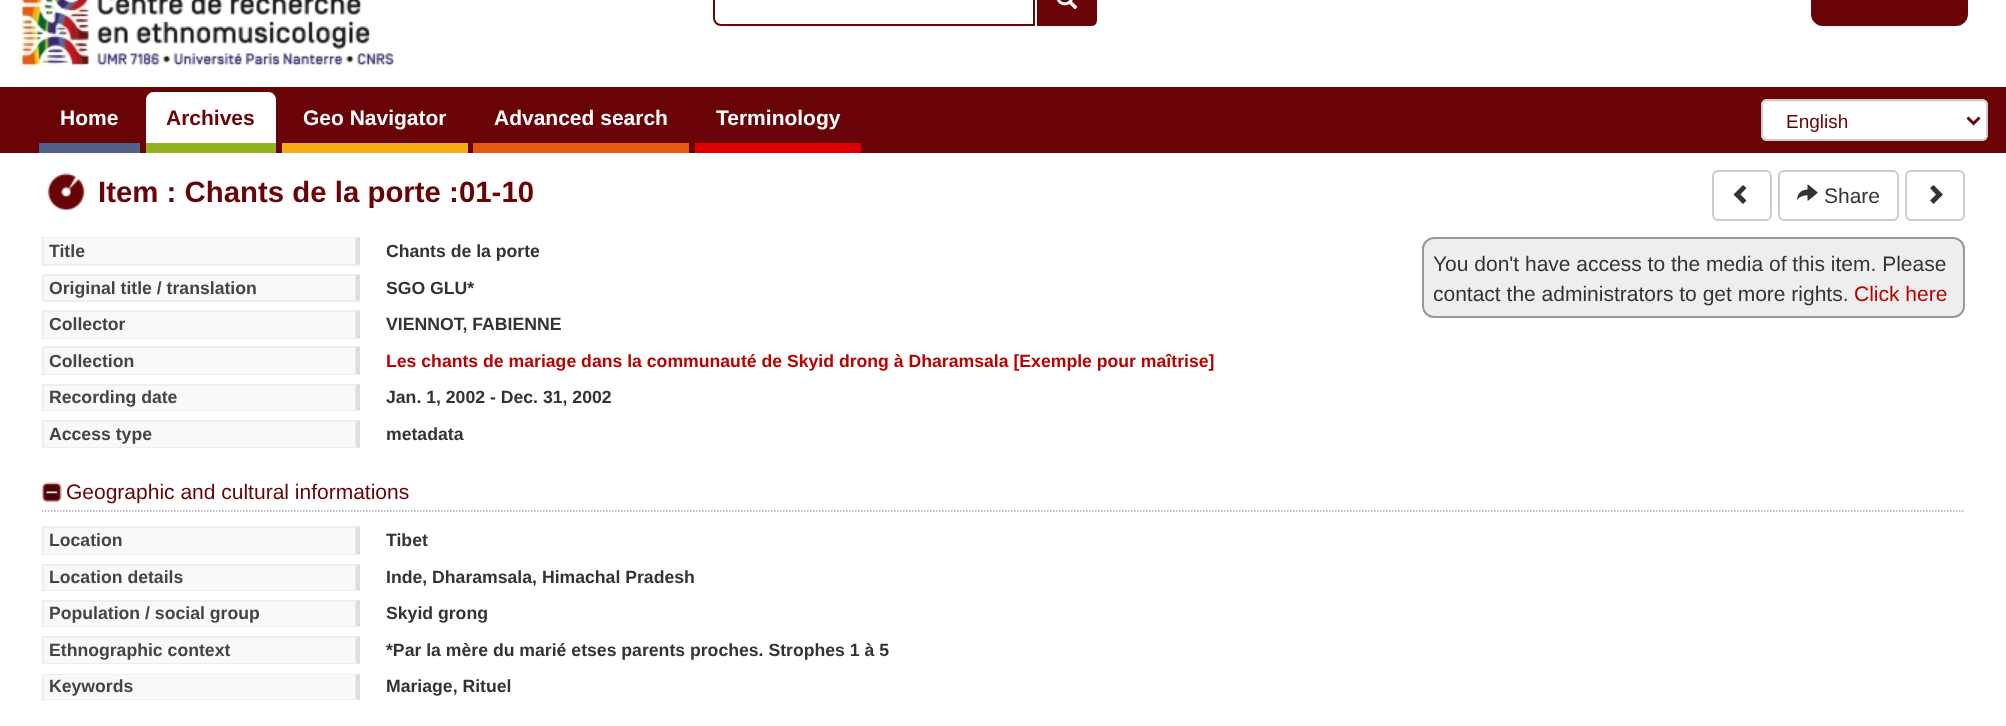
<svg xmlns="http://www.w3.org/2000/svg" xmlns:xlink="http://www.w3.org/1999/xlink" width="2006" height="726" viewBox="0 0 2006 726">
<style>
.cls-1{font:bold 21px Liberation Sans;fill:#ffffff}
.cls-2{font:bold 21px Liberation Sans;fill:#6a0307}
.cls-3{font:19px Liberation Sans;fill:#6a0307}
.cls-4{font:bold 29.4px Liberation Sans;fill:#6a0307}
.cls-5{font:21px Liberation Sans;fill:#333333}
.cls-6{font:bold 17.65px Liberation Sans;fill:#444444}
.cls-7{font:bold 17.65px Liberation Sans;fill:#333333}
.cls-8{font:bold 17.65px Liberation Sans;fill:#bb0000}
.cls-9{font:21px Liberation Sans;fill:#bb0000}
.cls-10{font:21px Liberation Sans;fill:#6a0307}
</style>
<rect width="100%" height="100%" fill="#ffffff"/>
<image xlink:href="image0.png" x="19" y="0" width="375" height="68"/>
<path fill="none" stroke="#6a0307" stroke-width="2" d="M721-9H1034V25H721C717 25 714 22 714 18V-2C714-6 717-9 721-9Z"/>
<path fill="#6a0307" stroke="#6a0307" stroke-width="2" d="M1038-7H1091C1094-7 1096-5 1096-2V20C1096 23 1094 25 1091 25H1038Z"/>
<image xlink:href="image1.png" x="1056" y="0" width="22" height="10"/>
<rect fill="#6a0307" x="1811" y="-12" width="157" height="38" rx="12"/>
<rect fill="#6a0307" x="0" y="87" width="2006" height="66"/>
<rect fill="#4f628a" x="39" y="143" width="101" height="10"/>
<path fill="#ffffff" d="M154 92H268C272.5 92 276 95.5 276 100V153H146V100C146 95.5 149.5 92 154 92Z"/>
<rect fill="#92b220" x="146" y="143" width="130" height="10"/>
<rect fill="#f3ad17" x="282" y="143" width="186" height="10"/>
<rect fill="#e65911" x="473" y="143" width="216" height="10"/>
<rect fill="#dd0000" x="695" y="143" width="166" height="10"/>
<rect fill="#ffffff" x="1761" y="99" width="227" height="42" rx="6"/>
<path fill="#ececec" d="M1767 102H1982C1984 102 1986 104 1986 106C1986 103 1984 101 1981 101H1768C1766 101 1765 102 1764 103Z"/>
<rect fill="none" stroke="#cccccc" stroke-width="2" x="1762" y="100" width="225" height="40" rx="5"/>
<path fill="none" stroke="#6a0307" stroke-width="3" d="M1967.5 117.5L1973.5 123.5L1979.5 117.5"/>
<image xlink:href="image2.png" x="47" y="173" width="38" height="37"/>
<rect fill="none" stroke="#cccccc" stroke-width="2" x="1713" y="171" width="58" height="49" rx="5"/>
<path fill="#333333" d="M1746.5 188L1740.5 194.5L1746.5 200.5L1743 204L1733.5 194.5L1743 185Z"/>
<rect fill="none" stroke="#cccccc" stroke-width="2" x="1779" y="171" width="119" height="49" rx="5"/>
<image xlink:href="image3.png" x="1797" y="184" width="21" height="17"/>
<rect fill="none" stroke="#cccccc" stroke-width="2" x="1906" y="171" width="58" height="49" rx="5"/>
<path fill="#333333" d="M1943 194.5L1933.5 204L1930 200.5L1936 194.5L1930 188L1933.5 185Z"/>
<rect fill="#f9f9f9" x="44" y="239" width="312" height="25"/>
<path fill="#eeeeee" d="M42 237H360L356 238H44Z"/>
<path fill="#dddddd" d="M360 237V265.5L355.5 264V238.5Z"/>
<path fill="#eeeeee" d="M360 266H42L44 264H356Z"/>
<rect fill="#eeeeee" x="42" y="237" width="2" height="29"/>
<rect fill="#f9f9f9" x="44" y="276" width="312" height="24"/>
<path fill="#eeeeee" d="M42 274H360L356 276H44Z"/>
<path fill="#dddddd" d="M360 274.5V301.5L355.5 300V276Z"/>
<path fill="#eeeeee" d="M360 302H42L44 300H356Z"/>
<rect fill="#eeeeee" x="42" y="275" width="2" height="27"/>
<rect fill="#f9f9f9" x="44" y="312" width="312" height="26"/>
<path fill="#eeeeee" d="M42 310H360L356 312H44Z"/>
<path fill="#dddddd" d="M360 310.5V339L355.5 337.5V312Z"/>
<path fill="#eeeeee" d="M360 339H42L44 338H356Z"/>
<rect fill="#eeeeee" x="42" y="311" width="2" height="28"/>
<rect fill="#f9f9f9" x="44" y="348" width="312" height="26"/>
<path fill="#eeeeee" d="M42 346H360L356 348H44Z"/>
<path fill="#dddddd" d="M360 346.5V375L355.5 373.5V348Z"/>
<path fill="#eeeeee" d="M360 375H42L44 374H356Z"/>
<rect fill="#eeeeee" x="42" y="347" width="2" height="28"/>
<rect fill="#f9f9f9" x="44" y="386" width="312" height="24"/>
<path fill="#eeeeee" d="M42 384H360L356 386H44Z"/>
<path fill="#dddddd" d="M360 384V411L355.5 409.5V385.5Z"/>
<path fill="#eeeeee" d="M360 411H42L44 410H356Z"/>
<rect fill="#eeeeee" x="42" y="384" width="2" height="27"/>
<rect fill="#f9f9f9" x="44" y="422" width="312" height="25"/>
<path fill="#eeeeee" d="M42 420H360L356 422H44Z"/>
<path fill="#dddddd" d="M360 420V448.5L355.5 447V421.5Z"/>
<path fill="#eeeeee" d="M360 448H42L44 447H356Z"/>
<rect fill="#eeeeee" x="42" y="420" width="2" height="29"/>
<rect fill="#eeeeee" stroke="#999999" stroke-width="2" x="1423" y="238" width="541" height="79" rx="11"/>
<path fill="none" stroke="#aaaaaa" stroke-width="1.5" stroke-dasharray="1.5 1.5" d="M42 511H1965"/>
<image xlink:href="image4.png" x="42" y="482" width="20" height="21"/>
<rect fill="#f9f9f9" x="44" y="528" width="312" height="26"/>
<path fill="#eeeeee" d="M42 526H360L356 528H44Z"/>
<path fill="#dddddd" d="M360 526.5V555L355.5 553.5V528Z"/>
<path fill="#eeeeee" d="M360 555H42L44 554H356Z"/>
<rect fill="#eeeeee" x="42" y="527" width="2" height="28"/>
<rect fill="#f9f9f9" x="44" y="566" width="312" height="24"/>
<path fill="#eeeeee" d="M42 564H360L356 566H44Z"/>
<path fill="#dddddd" d="M360 564V591L355.5 589.5V565.5Z"/>
<path fill="#eeeeee" d="M360 591H42L44 590H356Z"/>
<rect fill="#eeeeee" x="42" y="564" width="2" height="27"/>
<rect fill="#f9f9f9" x="44" y="602" width="312" height="24"/>
<path fill="#eeeeee" d="M42 600H360L356 602H44Z"/>
<path fill="#dddddd" d="M360 600V627L355.5 625.5V601.5Z"/>
<path fill="#eeeeee" d="M360 627H42L44 626H356Z"/>
<rect fill="#eeeeee" x="42" y="600" width="2" height="27"/>
<rect fill="#f9f9f9" x="44" y="638" width="312" height="25"/>
<path fill="#eeeeee" d="M42 636H360L356 638H44Z"/>
<path fill="#dddddd" d="M360 636V664.5L355.5 663V637.5Z"/>
<path fill="#eeeeee" d="M360 664H42L44 663H356Z"/>
<rect fill="#eeeeee" x="42" y="636" width="2" height="29"/>
<rect fill="#f9f9f9" x="44" y="675" width="312" height="24"/>
<path fill="#eeeeee" d="M42 674H360L356 675H44Z"/>
<path fill="#dddddd" d="M360 673.5V700.5L355.5 699V675Z"/>
<path fill="#eeeeee" d="M360 700H42L44 699H356Z"/>
<rect fill="#eeeeee" x="42" y="674" width="2" height="27"/>
<text class="cls-1" x="60" y="125">Home</text>
<text class="cls-2" x="166" y="125">Archives</text>
<text class="cls-1" x="303" y="125">Geo Navigator</text>
<text class="cls-1" x="494" y="125">Advanced search</text>
<text class="cls-1" x="716" y="125">Terminology</text>
<text class="cls-3" x="1786" y="128">English</text>
<text class="cls-4" x="98" y="202">Item : Chants de la porte :01-10</text>
<text class="cls-5" x="1824" y="203">Share</text>
<text class="cls-6" x="49" y="257">Title</text>
<text class="cls-7" x="386" y="257">Chants de la porte</text>
<text class="cls-6" x="49" y="294">Original title / translation</text>
<text class="cls-7" x="386" y="294">SGO GLU*</text>
<text class="cls-6" x="49" y="330">Collector</text>
<text class="cls-7" x="386" y="330">VIENNOT, FABIENNE</text>
<text class="cls-6" x="49" y="367">Collection</text>
<text class="cls-8" x="386" y="367">Les chants de mariage dans la communauté de Skyid drong à Dharamsala [Exemple pour maîtrise]</text>
<text class="cls-6" x="49" y="403">Recording date</text>
<text class="cls-7" x="386" y="403">Jan. 1, 2002 - Dec. 31, 2002</text>
<text class="cls-6" x="49" y="440">Access type</text>
<text class="cls-7" x="386" y="440">metadata</text>
<text class="cls-5"><tspan x="1433" y="271">You don't have access to the media of this item. Please</tspan><tspan x="1433" y="301">contact the administrators to get more rights.</tspan></text>
<text class="cls-9" x="1854" y="301">Click here</text>
<text class="cls-10" x="66" y="499">Geographic and cultural informations</text>
<text class="cls-6" x="49" y="546">Location</text>
<text class="cls-7" x="386" y="546">Tibet</text>
<text class="cls-6" x="49" y="583">Location details</text>
<text class="cls-7" x="386" y="583">Inde, Dharamsala, Himachal Pradesh</text>
<text class="cls-6" x="49" y="619">Population / social group</text>
<text class="cls-7" x="386" y="619">Skyid grong</text>
<text class="cls-6" x="49" y="656">Ethnographic context</text>
<text class="cls-7" x="386" y="656">*Par la mère du marié etses parents proches. Strophes 1 à 5</text>
<text class="cls-6" x="49" y="692">Keywords</text>
<text class="cls-7" x="386" y="692">Mariage, Rituel</text>
</svg>
